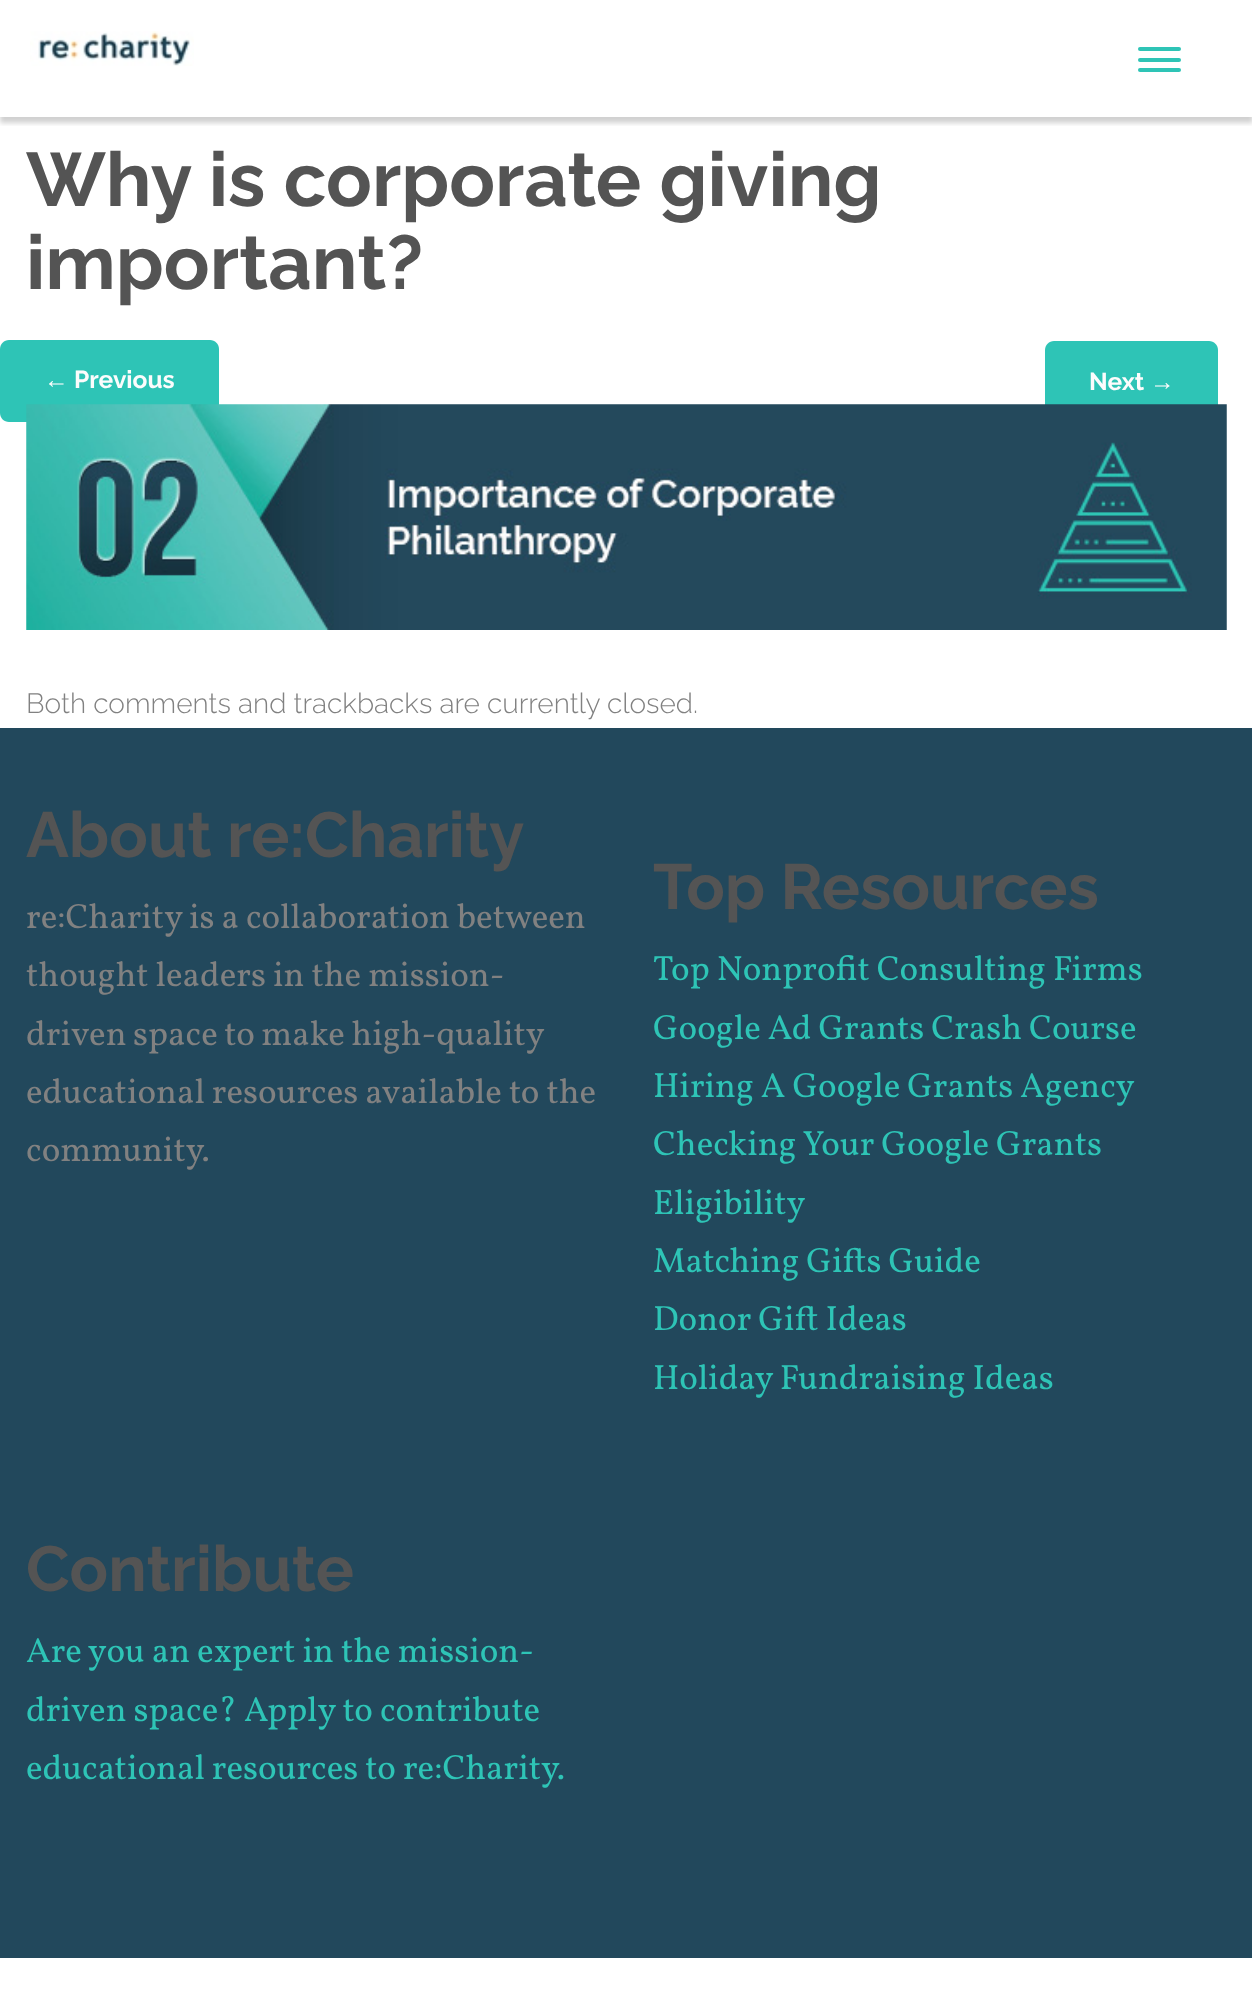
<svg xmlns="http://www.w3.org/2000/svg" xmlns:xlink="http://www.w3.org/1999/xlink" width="1252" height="1998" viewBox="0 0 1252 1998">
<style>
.cls-1{font:bold 75.75px Raleway;fill:#545454}
.cls-2{font:bold 24.5px Liberation Serif;fill:#fcfcfc}
.cls-3{font:bold 24.5px Raleway;fill:#fcfcfc}
.cls-4{font:300 28px Raleway;fill:#818181}
.cls-5{font:bold 63.75px Raleway;fill:#545454}
.cls-6{font:35px Vollkorn;fill:#818181}
.cls-7{font:35px Vollkorn;fill:#2ec4b6}
</style>
<defs>
<clipPath id="clip1"><rect x="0" y="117" width="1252" height="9"/></clipPath>
</defs>
<rect width="100%" height="100%" fill="#ffffff"/>
<g clip-path="url(#clip1)">
<rect fill="#000000" fill-opacity="0.18" filter="blur(2.5px)" x="0" y="5" width="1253" height="118"/>
</g>
<image xlink:href="image0.png" x="30" y="31" width="164" height="35"/>
<rect fill="#2ec4b6" x="1138" y="47" width="43" height="4" rx="2"/>
<rect fill="#2ec4b6" x="1138" y="58" width="43" height="4" rx="2"/>
<rect fill="#2ec4b6" x="1138" y="68" width="43" height="4" rx="2"/>
<path fill="#2ec4b6" d="M9 340H68V422H9C4 422 0 418 0 413V349C0 344 4 340 9 340Z"/>
<path fill="#2ec4b6" d="M68 340H210C215 340 219 344 219 349V413C219 418 215 422 210 422H68Z"/>
<path fill="#2ec4b6" d="M1054 341H1150V424H1054C1049 424 1045 420 1045 415V350C1045 345 1049 341 1054 341Z"/>
<path fill="#2ec4b6" d="M1150 341H1209C1214 341 1218 345 1218 350V415C1218 420 1214 424 1209 424H1150Z"/>
<image xlink:href="image1.png" x="26" y="404" width="1201" height="226"/>
<rect fill="#22485c" x="0" y="728" width="1252" height="1230"/>
<text class="cls-1"><tspan x="26" y="206">Why is corporate giving</tspan><tspan x="26" y="289">important?</tspan></text>
<text class="cls-2" x="44" y="388">←</text>
<text class="cls-3" x="74" y="388">Previous</text>
<text class="cls-3" x="1089" y="390">Next</text>
<text class="cls-2" x="1150" y="390">→</text>
<text class="cls-4" x="26" y="713">Both comments and trackbacks are currently closed.</text>
<text class="cls-5" x="26" y="857">About re:Charity</text>
<text class="cls-6"><tspan x="26" y="928">re:Charity is a collaboration between</tspan><tspan x="26" y="986">thought leaders in the mission-</tspan><tspan x="26" y="1045" word-spacing="-0.5">driven space to make high-quality</tspan><tspan x="26" y="1103">educational resources available to the</tspan><tspan x="26" y="1161">community.</tspan></text>
<text class="cls-5" x="653" y="909">Top Resources</text>
<text class="cls-7"><tspan x="653" y="980">Top Nonprofit Consulting Firms</tspan><tspan x="653" y="1039">Google Ad Grants Crash Course</tspan><tspan x="653" y="1097">Hiring A Google Grants Agency</tspan><tspan x="653" y="1155">Checking Your Google Grants</tspan><tspan x="653" y="1214">Eligibility</tspan><tspan x="653" y="1272">Matching Gifts Guide</tspan><tspan x="653" y="1330">Donor Gift Ideas</tspan><tspan x="653" y="1389">Holiday Fundraising Ideas</tspan></text>
<text class="cls-5" x="26" y="1591">Contribute</text>
<text class="cls-7"><tspan x="26" y="1662">Are you an expert in the mission-</tspan><tspan x="26" y="1721">driven space? Apply to contribute</tspan><tspan x="26" y="1779">educational resources to re:Charity.</tspan></text>
</svg>
